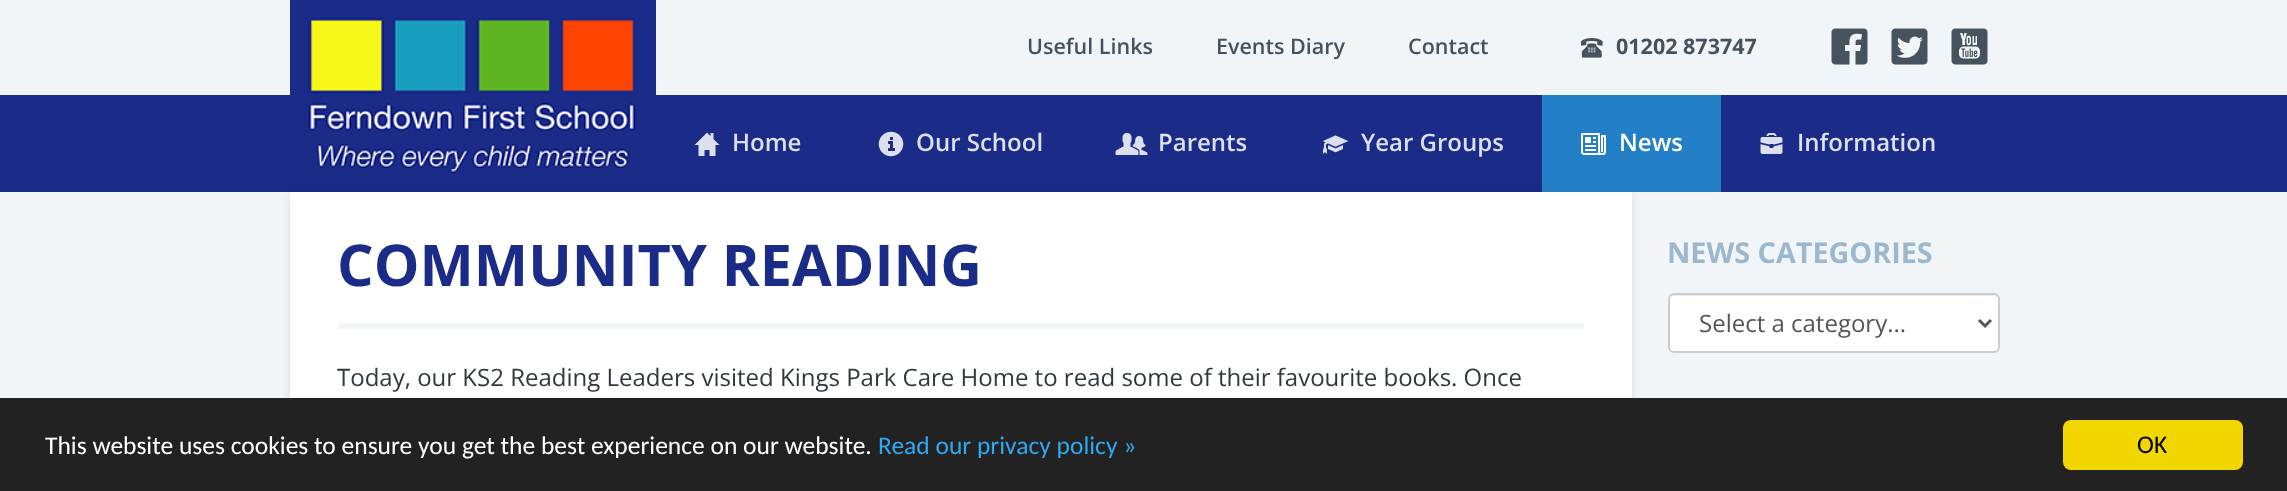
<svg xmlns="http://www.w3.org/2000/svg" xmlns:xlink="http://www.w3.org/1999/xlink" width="2287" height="491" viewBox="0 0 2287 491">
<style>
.cls-1{font:600 21.5px Open Sans;fill:#46525e}
.cls-2{font:bold 21.5px Open Sans;fill:#46525e}
.cls-3{font:600 24px Open Sans;fill:#dddfed}
.cls-4{font:600 24px Open Sans;fill:#ffffff}
.cls-5{font:bold 57.6px Open Sans;fill:#1b2b88}
.cls-6{font:24px Open Sans;fill:#303940}
.cls-7{font:bold 28.75px Open Sans;fill:#9cb8ce}
.cls-8{font:24px Open Sans;fill:#555555}
.cls-9{font:25.5px Carlito;fill:#ffffff}
.cls-10{font:25.5px Carlito;fill:#31a8f0}
.cls-11{font:25.5px Carlito;fill:#000000}
</style>
<rect width="100%" height="100%" fill="#f1f5f8"/>
<rect fill="#1b2b88" x="290" y="0" width="366" height="95"/>
<rect fill="#1b2b88" x="0" y="95" width="2287" height="97"/>
<image xlink:href="image0.png" x="308" y="18" width="328" height="155"/>
<image xlink:href="image1.png" x="1581" y="38" width="22" height="20"/>
<image xlink:href="image2.png" x="1831" y="28" width="37" height="37"/>
<image xlink:href="image3.png" x="1891" y="28" width="37" height="37"/>
<image xlink:href="image4.png" x="1951" y="28" width="37" height="37"/>
<image xlink:href="image5.png" x="694" y="132" width="26" height="24"/>
<image xlink:href="image6.png" x="878" y="131" width="26" height="26"/>
<image xlink:href="image7.png" x="1115" y="133" width="33" height="22"/>
<image xlink:href="image8.png" x="1322" y="135" width="27" height="19"/>
<rect fill="#2480c6" x="1542" y="95" width="179" height="97"/>
<image xlink:href="image9.png" x="1581" y="133" width="25" height="22"/>
<image xlink:href="image10.png" x="1760" y="133" width="23" height="21"/>
<rect fill="#000000" fill-opacity="0.1" filter="blur(4.5px)" x="290" y="197" width="1342" height="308"/>
<rect fill="#ffffff" x="290" y="192" width="1342" height="206"/>
<rect fill="#f1f5f8" x="338" y="323" width="1246" height="6"/>
<rect fill="#ffffff" x="1668" y="293" width="332" height="60" rx="6"/>
<path fill="#ececec" d="M1674 296H1994C1996 296 1998 298 1998 300C1998 297 1996 294 1993 294H1675C1672 294 1670 297 1670 300C1670 298 1672 296 1674 296Z"/>
<rect fill="none" stroke="#cccccc" stroke-width="2" x="1669" y="294" width="330" height="58" rx="5"/>
<path fill="none" stroke="#555555" stroke-width="3" d="M1979 320L1985 326L1991 320"/>
<rect fill="#222222" x="0" y="398" width="2287" height="93"/>
<rect fill="#f1d600" x="2063" y="420" width="180" height="50" rx="8"/>
<text class="cls-1" x="1027" y="54">Useful Links</text>
<text class="cls-1" x="1216" y="54">Events Diary</text>
<text class="cls-1" x="1408" y="54">Contact</text>
<text class="cls-2" x="1616" y="54">01202 873747</text>
<text class="cls-3" x="732" y="151">Home</text>
<text class="cls-3" x="916" y="151">Our School</text>
<text class="cls-3" x="1158" y="151">Parents</text>
<text class="cls-3" x="1361" y="151">Year Groups</text>
<text class="cls-4" x="1619" y="151">News</text>
<text class="cls-3" x="1797" y="151">Information</text>
<text class="cls-5" x="337" y="286">COMMUNITY READING</text>
<text class="cls-6" x="337" y="386">Today, our KS2 Reading Leaders visited Kings Park Care Home to read some of their favourite books. Once</text>
<text class="cls-7" x="1667" y="263">NEWS CATEGORIES</text>
<text class="cls-8" x="1699" y="332">Select a category...</text>
<text class="cls-9" x="45" y="454">This website uses cookies to ensure you get the best experience on our website.</text>
<text class="cls-10" x="878" y="454">Read our privacy policy »</text>
<text class="cls-11" x="2137" y="453">OK</text>
</svg>
